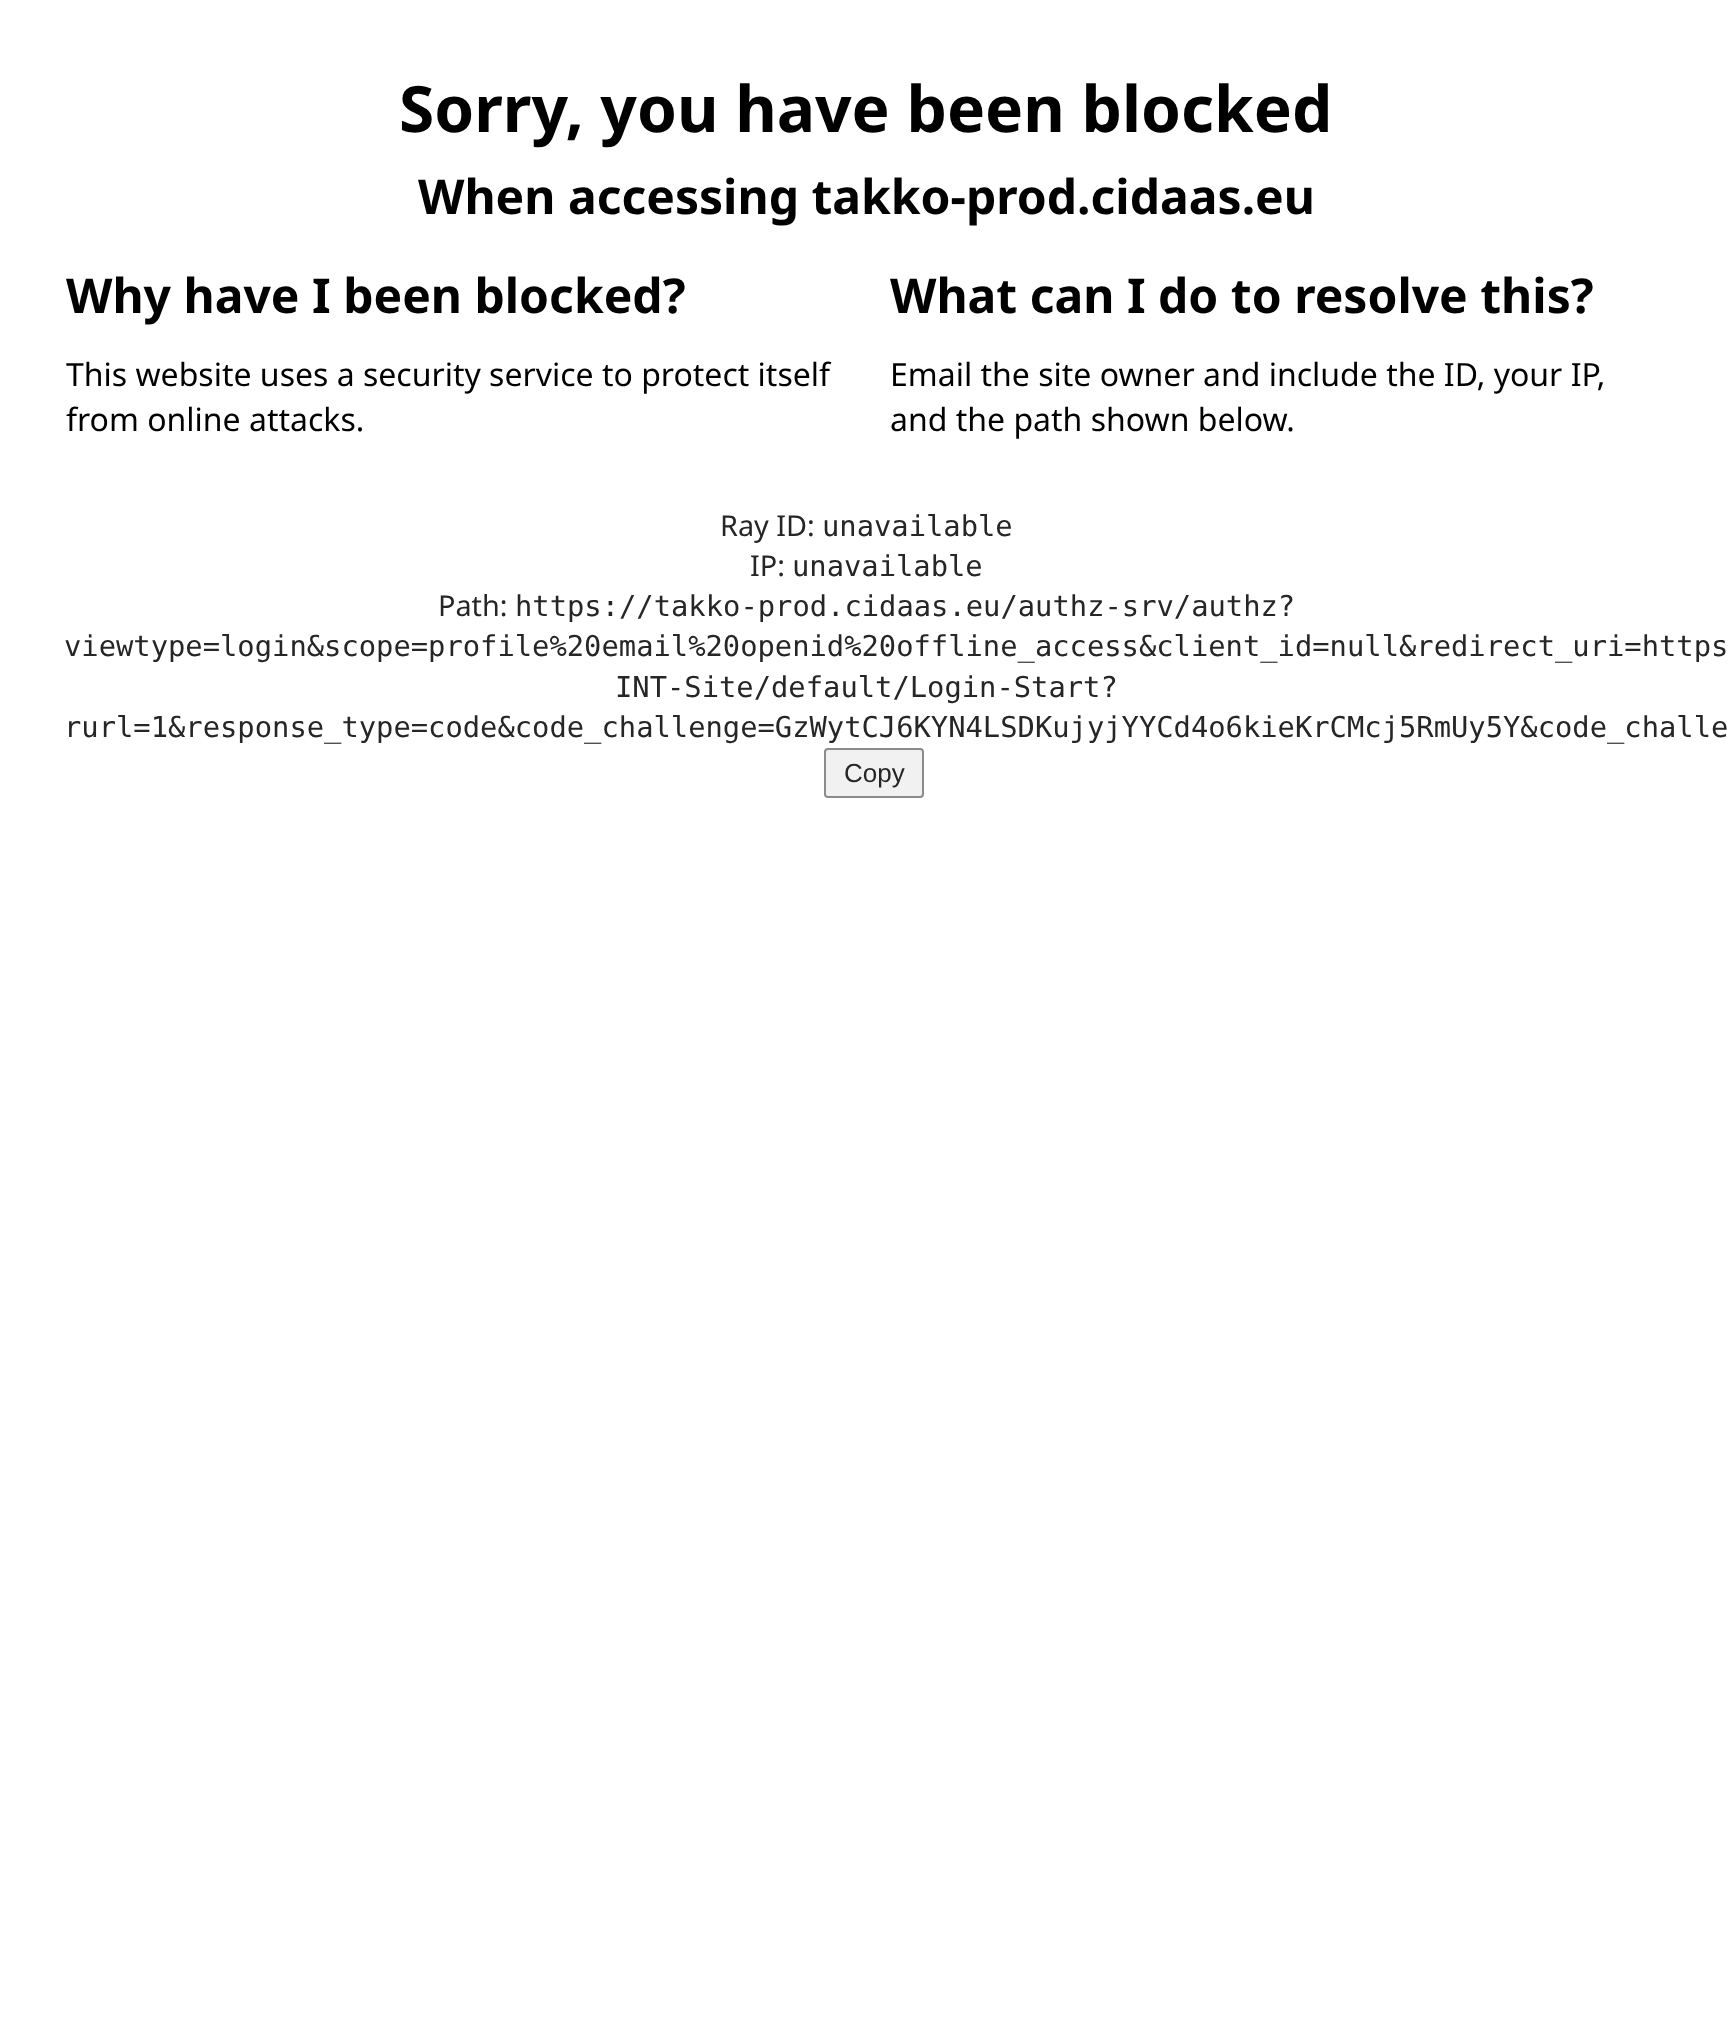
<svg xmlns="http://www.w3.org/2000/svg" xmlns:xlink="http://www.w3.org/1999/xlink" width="1732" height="2041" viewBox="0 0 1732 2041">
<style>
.cls-1{font:bold 64px Noto Sans;fill:#000000}
.cls-2{font:bold 48px Noto Sans;fill:#000000}
.cls-3{font:32px Noto Sans;fill:#000000}
.cls-4{font:28.8px Noto Sans;fill:#262626}
.cls-5{font:28.8px DejaVu Sans Mono;fill:#262626}
.cls-6{font:26px Liberation Sans;fill:#262626}
</style>
<rect width="100%" height="100%" fill="#ffffff"/>
<rect fill="#f1f1f1" stroke="#8b8b8b" stroke-width="2" x="825" y="749" width="98" height="48" rx="3"/>
<text class="cls-1" x="399" y="132">Sorry, you have been blocked</text>
<text class="cls-2" x="418" y="214">When accessing takko-prod.cidaas.eu</text>
<text class="cls-2" x="66" y="313">Why have I been blocked?</text>
<text class="cls-3"><tspan x="66" y="386">This website uses a security service to protect itself</tspan><tspan x="66" y="431">from online attacks.</tspan></text>
<text class="cls-2" x="890" y="313">What can I do to resolve this?</text>
<text class="cls-3"><tspan x="890" y="386">Email the site owner and include the ID, your IP,</tspan><tspan x="890" y="431">and the path shown below.</tspan></text>
<text class="cls-4" x="720" y="536">Ray ID:</text>
<text class="cls-5" x="822" y="536">unavailable</text>
<text class="cls-4" x="750" y="576">IP:</text>
<text class="cls-5" x="792" y="576">unavailable</text>
<text class="cls-4" x="438" y="616">Path:</text>
<text class="cls-5" x="515" y="616">https://takko-prod.cidaas.eu/authz-srv/authz?</text>
<text class="cls-5" x="64" y="656">viewtype=login&amp;scope=profile%20email%20openid%20offline_access&amp;client_id=null&amp;redirect_uri=https</text>
<text class="cls-5" x="615" y="697">INT-Site/default/Login-Start?</text>
<text class="cls-5" x="64" y="737">rurl=1&amp;response_type=code&amp;code_challenge=GzWytCJ6KYN4LSDKujyjYYCd4o6kieKrCMcj5RmUy5Y&amp;code_challe</text>
<text class="cls-6" x="844" y="782">Copy</text>
</svg>
